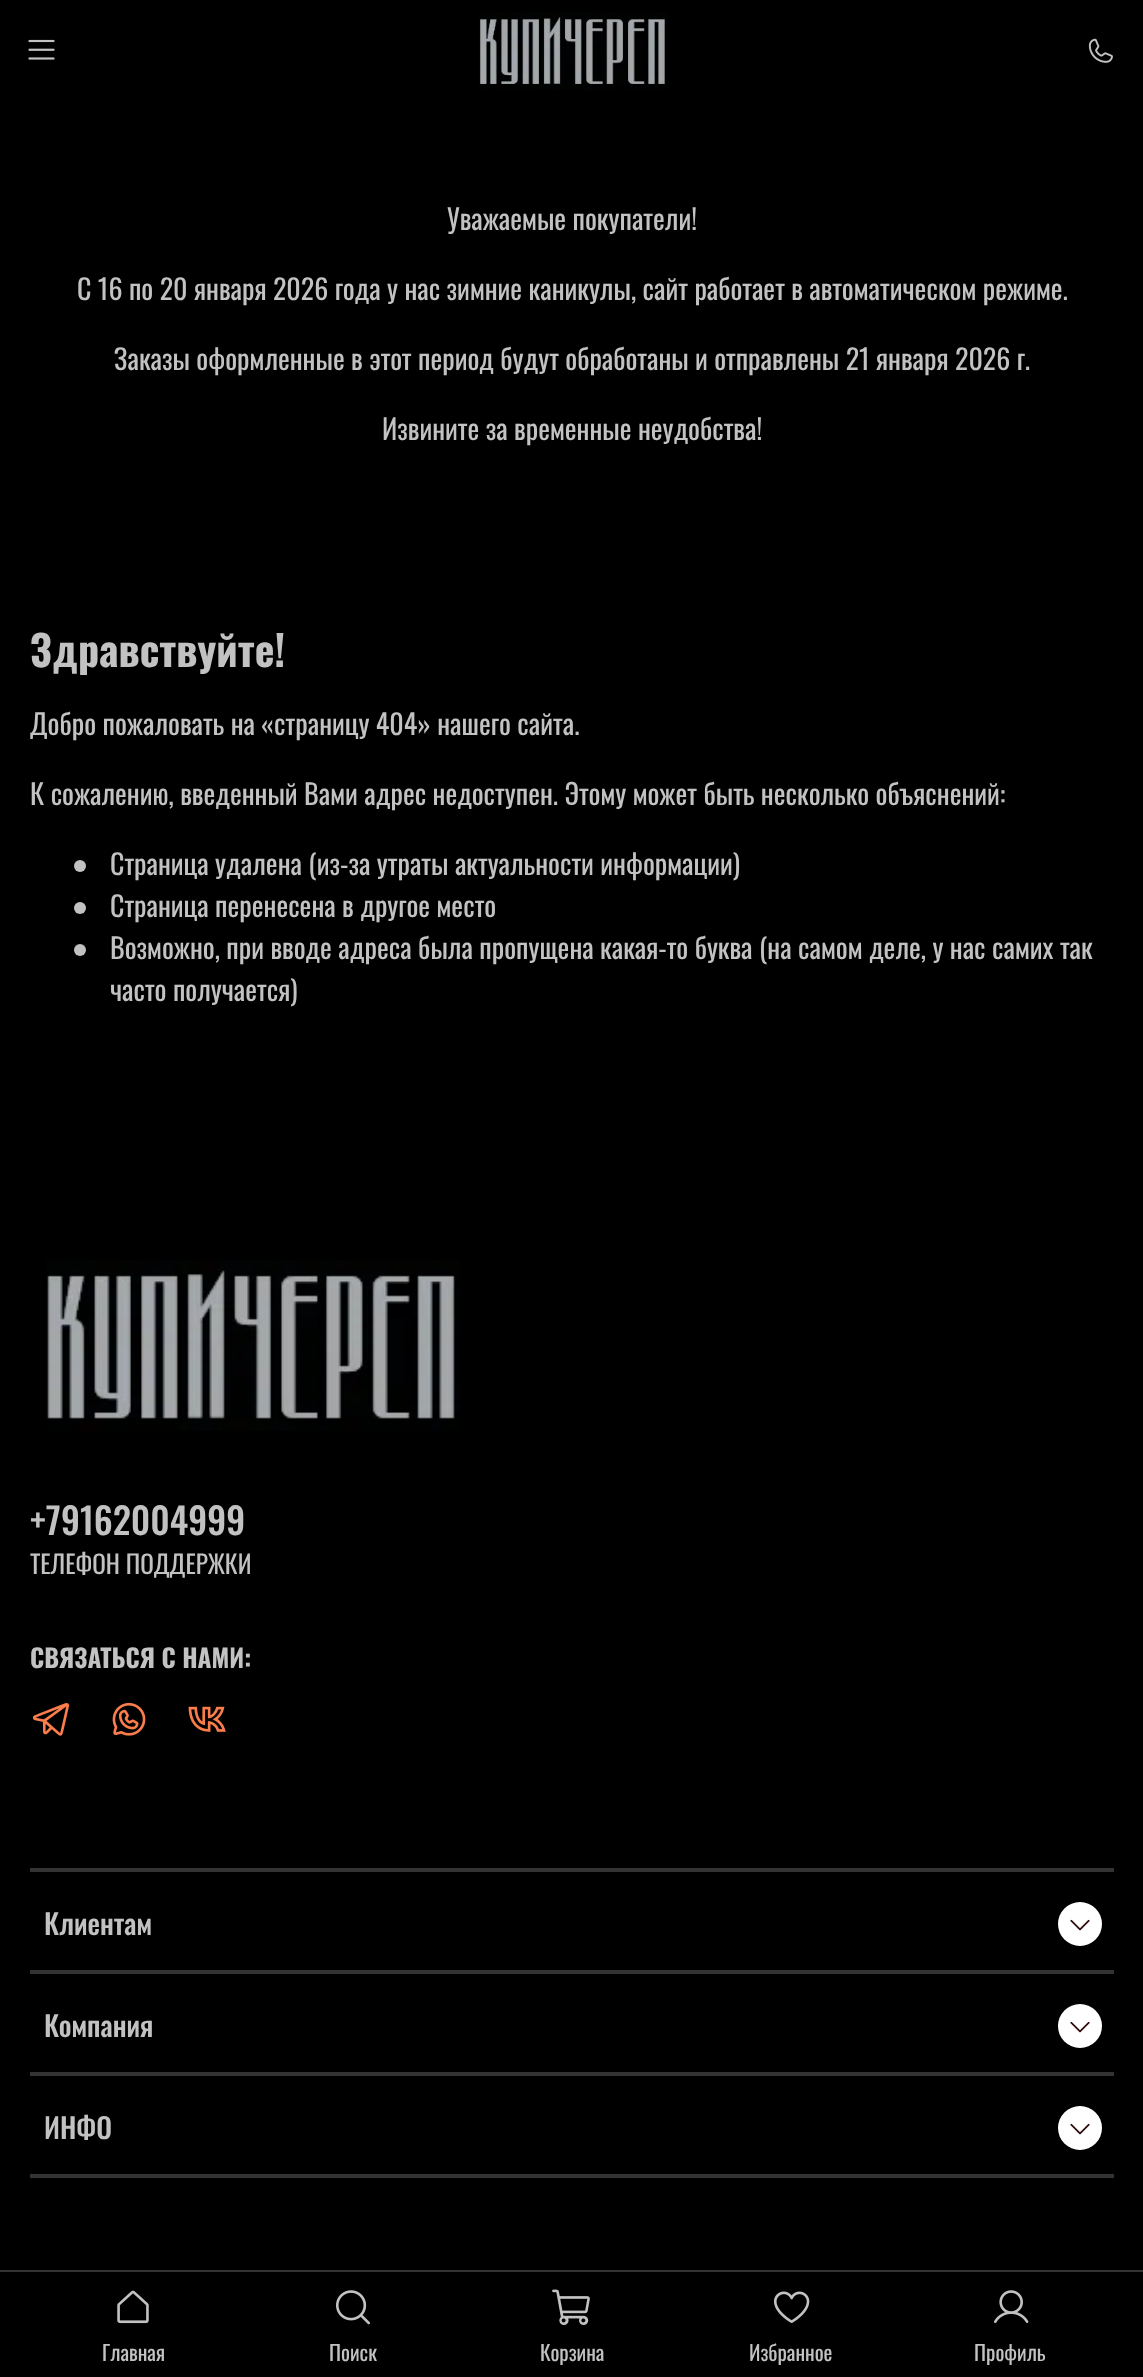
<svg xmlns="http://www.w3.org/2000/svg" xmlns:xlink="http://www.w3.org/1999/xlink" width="1143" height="2377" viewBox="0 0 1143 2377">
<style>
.cls-1{font:28px Oswald;fill:#c2c2c2}
.cls-2{font:bold 42px Oswald;fill:#c2c2c2}
.cls-3{font:500 36.5px Oswald;fill:#c2c2c2}
.cls-4{font:25.25px Oswald;fill:#c2c2c2}
.cls-5{font:bold 25.25px Oswald;fill:#c2c2c2}
.cls-6{font:500 28px Oswald;fill:#c2c2c2}
.cls-7{font:21px Oswald;fill:#c2c2c2}
</style>
<rect width="100%" height="100%" fill="#000000"/>
<image xlink:href="image0.png" x="28" y="39" width="27" height="21"/>
<image xlink:href="image1.png" x="479" y="12" width="189" height="78"/>
<image xlink:href="image2.png" x="1088" y="38" width="25" height="25"/>
<circle fill="#c2c2c2" cx="80" cy="866" r="6"/>
<circle fill="#c2c2c2" cx="80" cy="908" r="6"/>
<circle fill="#c2c2c2" cx="80" cy="950" r="6"/>
<image xlink:href="image3.png" x="46" y="1260" width="414" height="171"/>
<image xlink:href="image4.png" x="33" y="1703" width="36" height="33"/>
<image xlink:href="image5.png" x="112" y="1702" width="34" height="34"/>
<image xlink:href="image6.png" x="188" y="1706" width="38" height="26"/>
<rect fill="#333333" x="30" y="1868" width="1084" height="4"/>
<circle fill="#ffffff" cx="1080" cy="1924" r="22"/>
<image xlink:href="image7.png" x="1070" y="1919" width="20" height="12"/>
<rect fill="#333333" x="30" y="1970" width="1084" height="4"/>
<circle fill="#ffffff" cx="1080" cy="2026" r="22"/>
<image xlink:href="image7.png" x="1070" y="2021" width="20" height="12"/>
<rect fill="#333333" x="30" y="2072" width="1084" height="4"/>
<rect fill="#333333" x="30" y="2174" width="1084" height="4"/>
<circle fill="#ffffff" cx="1080" cy="2128" r="22"/>
<image xlink:href="image7.png" x="1070" y="2123" width="20" height="12"/>
<rect fill="#333333" x="0" y="2270" width="1143" height="2"/>
<image xlink:href="image8.png" x="117" y="2290" width="32" height="34"/>
<image xlink:href="image9.png" x="336" y="2290" width="34" height="35"/>
<image xlink:href="image10.png" x="552" y="2289" width="38" height="36"/>
<image xlink:href="image11.png" x="773" y="2291" width="37" height="32"/>
<image xlink:href="image12.png" x="994" y="2290" width="35" height="33"/>
<text class="cls-1" x="447" y="230">Уважаемые покупатели!</text>
<text class="cls-1" x="77" y="300">С 16 по 20 января 2026 года у нас зимние каникулы, сайт работает в автоматическом режиме.</text>
<text class="cls-1" x="114" y="370">Заказы оформленные в этот период будут обработаны и отправлены 21 января 2026 г.</text>
<text class="cls-1" x="382" y="440">Извините за временные неудобства!</text>
<text class="cls-2" x="30" y="667">Здравствуйте!</text>
<text class="cls-1" x="30" y="735">Добро пожаловать на «страницу 404» нашего сайта.</text>
<text class="cls-1" x="30" y="805">К сожалению, введенный Вами адрес недоступен. Этому может быть несколько объяснений:</text>
<text class="cls-1"><tspan x="110" y="875">Страница удалена (из-за утраты актуальности информации)</tspan><tspan x="110" y="917">Страница перенесена в другое место</tspan><tspan x="110" y="959">Возможно, при вводе адреса была пропущена какая-то буква (на самом деле, у нас самих так</tspan><tspan x="110" y="1001">часто получается)</tspan></text>
<text class="cls-3" x="30" y="1535">+79162004999</text>
<text class="cls-4" x="30" y="1574">ТЕЛЕФОН ПОДДЕРЖКИ</text>
<text class="cls-5" x="30" y="1668">СВЯЗАТЬСЯ С НАМИ:</text>
<text class="cls-6" x="44" y="1935">Клиентам</text>
<text class="cls-6" x="44" y="2037">Компания</text>
<text class="cls-6" x="44" y="2139">ИНФО</text>
<text class="cls-7" x="102" y="2361">Главная</text>
<text class="cls-7" x="329" y="2361">Поиск</text>
<text class="cls-7" x="540" y="2361">Корзина</text>
<text class="cls-7" x="749" y="2361">Избранное</text>
<text class="cls-7" x="974" y="2361">Профиль</text>
</svg>
